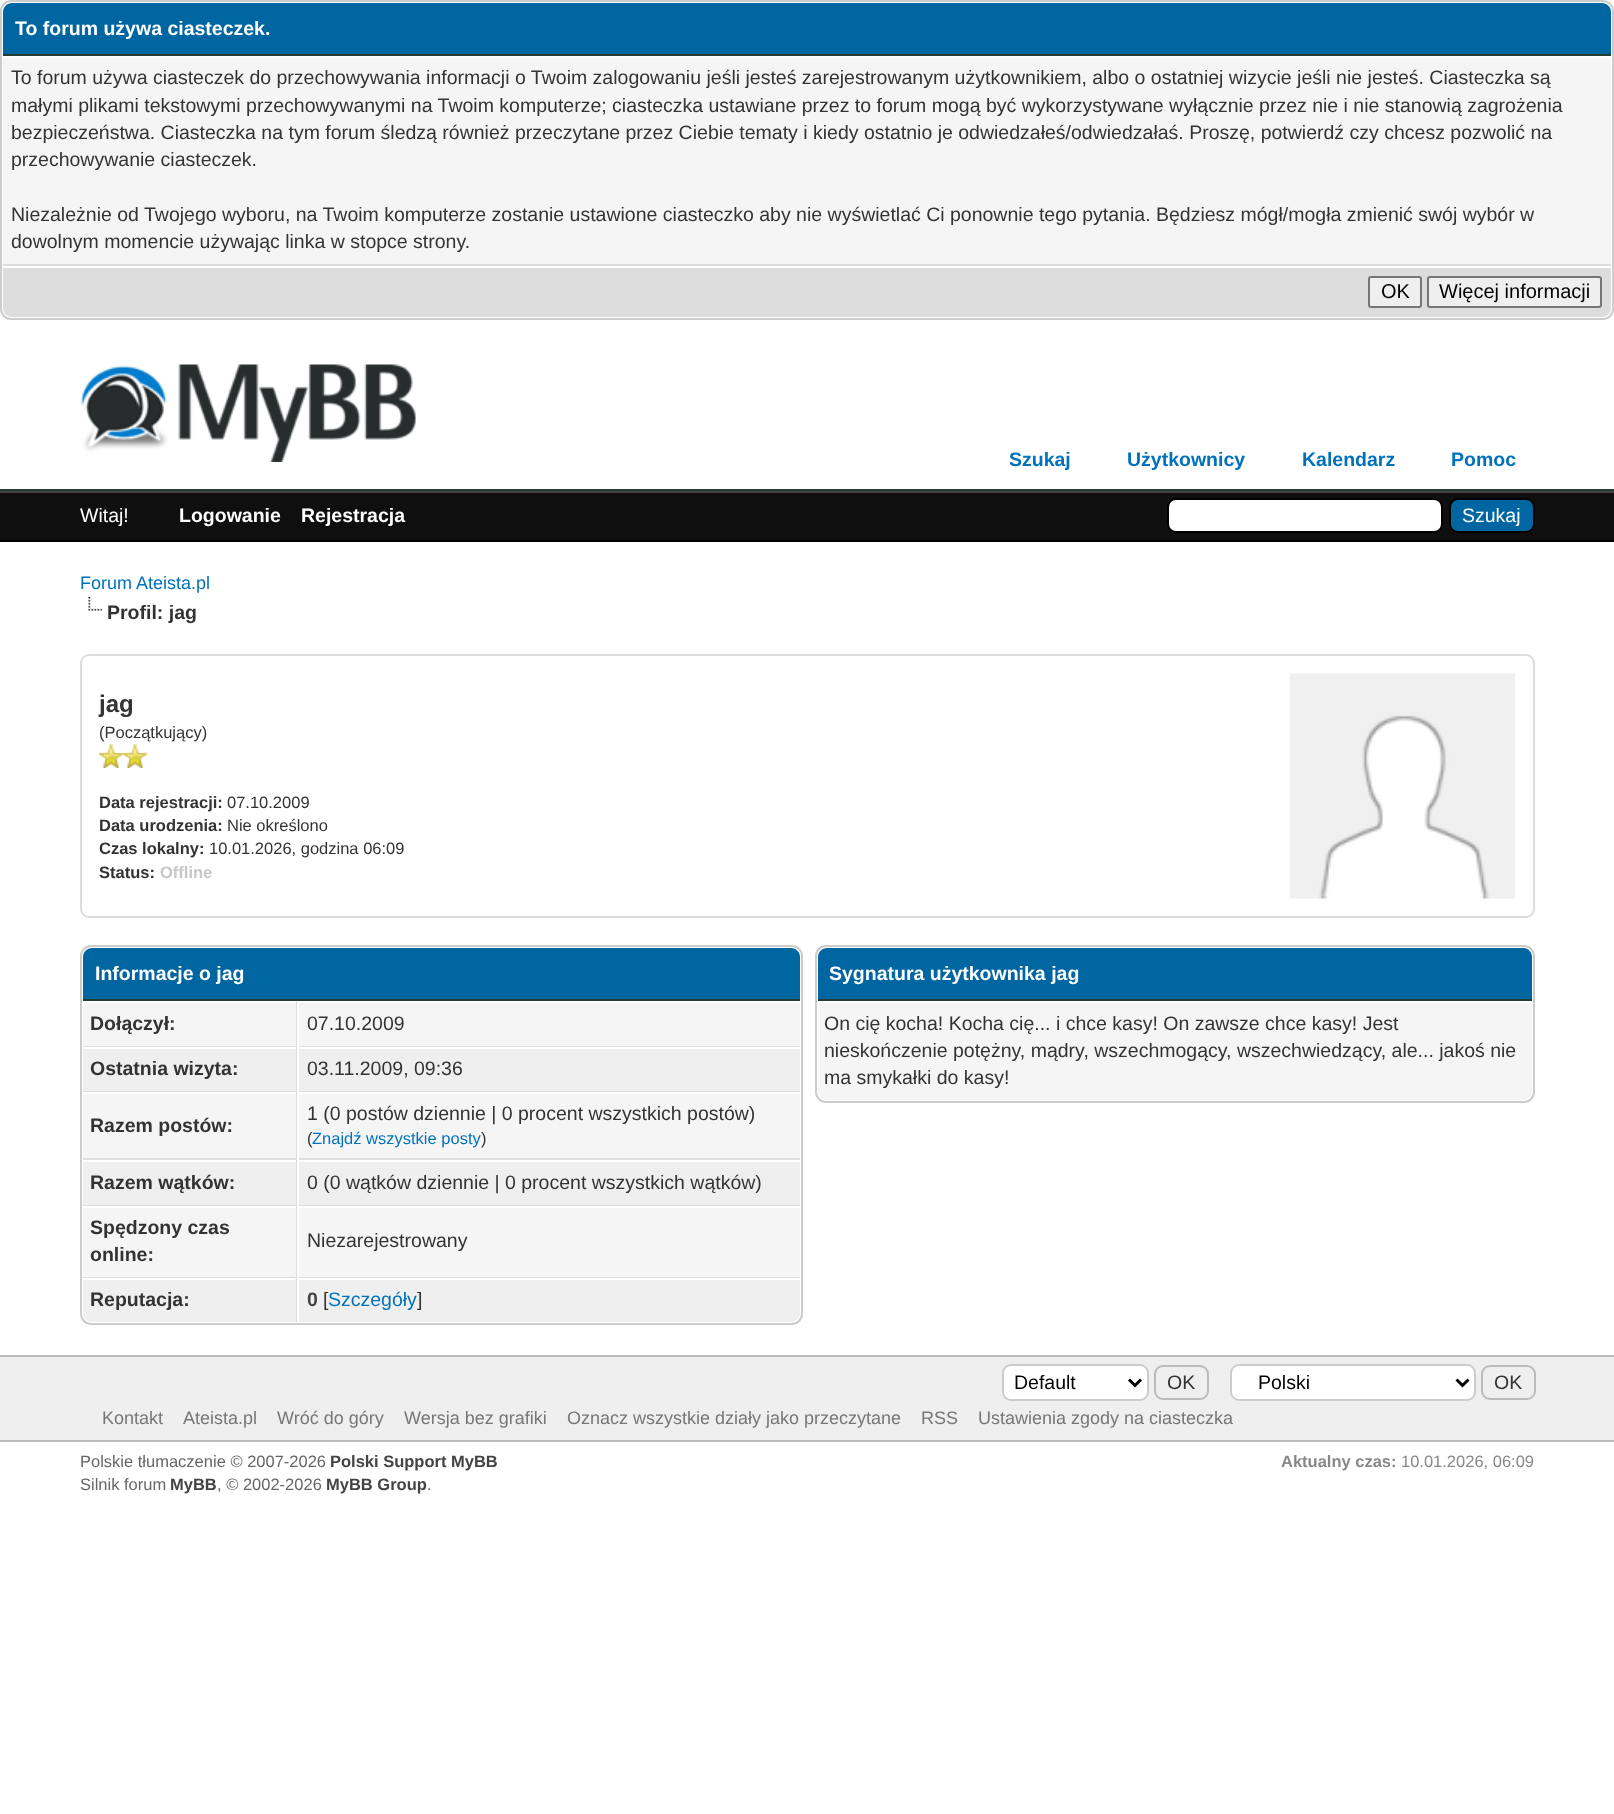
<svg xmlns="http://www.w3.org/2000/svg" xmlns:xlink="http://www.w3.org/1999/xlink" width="1614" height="1814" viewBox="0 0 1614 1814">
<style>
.cls-1{font:bold 19.5px Liberation Sans;fill:#ffffff}
.cls-2{font:19.5px Liberation Sans;fill:#333333}
.cls-3{font:20px Liberation Sans;fill:#000000}
.cls-4{font:bold 19.5px Liberation Sans;fill:#0072bc}
.cls-5{font:19.5px Liberation Sans;fill:#ffffff}
.cls-6{font:18px Liberation Sans;fill:#0072bc}
.cls-7{font:bold 19.5px Liberation Sans;fill:#333333}
.cls-8{font:bold 24px Liberation Sans;fill:#333333}
.cls-9{font:16.5px Liberation Sans;fill:#333333}
.cls-10{font:bold 16.5px Liberation Sans;fill:#333333}
.cls-11{font:bold 16.5px Liberation Sans;fill:#c7c7c7}
.cls-12{font:16.5px Liberation Sans;fill:#0072bc}
.cls-13{font:bold 19.5px Liberation Sans;fill:#444444}
.cls-14{font:19.5px Liberation Sans;fill:#0072bc}
.cls-15{font:19.5px Liberation Sans;fill:#000000}
.cls-16{font:18px Liberation Sans;fill:#777777}
.cls-17{font:16.5px Liberation Sans;fill:#666666}
.cls-18{font:bold 16.5px Liberation Sans;fill:#444444}
.cls-19{font:bold 16.5px Liberation Sans;fill:#888888}
.cls-20{font:16.5px Liberation Sans;fill:#888888}
</style>
<rect width="100%" height="100%" fill="#ffffff"/>
<rect fill="none" stroke="#cccccc" stroke-width="2" x="1" y="1" width="1612" height="318" rx="10"/>
<path fill="#0066a2" d="M12 3H1602C1607 3 1611 7 1611 12V56H3V12C3 7 7 3 12 3Z"/>
<rect fill="#263c30" x="3" y="54" width="1608" height="2"/>
<rect fill="#f5f5f5" x="3" y="58" width="1608" height="206"/>
<rect fill="#dddddd" x="3" y="264" width="1608" height="2"/>
<path fill="#dddddd" d="M3 266H1611V308C1611 313 1607 317 1602 317H12C7 317 3 313 3 308Z"/>
<rect fill="#ffffff" x="3" y="266" width="1608" height="2"/>
<rect fill="#efefef" stroke="#767676" stroke-width="2" x="1369" y="277" width="52" height="30" rx="2"/>
<rect fill="#efefef" stroke="#767676" stroke-width="2" x="1428" y="277" width="173" height="30" rx="2"/>
<rect fill="#263c30" x="0" y="489" width="1614" height="2"/>
<image xlink:href="image0.png" x="80" y="364" width="336" height="98"/>
<rect fill="#0f0f0f" x="0" y="493" width="1614" height="47"/>
<rect fill="#444444" x="0" y="491" width="1614" height="2"/>
<rect fill="#000000" x="0" y="540" width="1614" height="2"/>
<rect fill="#ffffff" stroke="#000000" stroke-width="2" x="1168" y="499" width="274" height="33" rx="8"/>
<rect fill="#0066a2" stroke="#000000" stroke-width="2" x="1450" y="499" width="84" height="33" rx="8"/>
<image xlink:href="image1.png" x="88" y="597" width="14" height="14"/>
<rect fill="none" stroke="#dddddd" stroke-width="2" x="81" y="655" width="1453" height="262" rx="8"/>
<image xlink:href="image2.png" x="99" y="744" width="24" height="24"/>
<image xlink:href="image2.png" x="123" y="744" width="24" height="24"/>
<image xlink:href="image3.png" x="1290" y="673" width="225" height="226"/>
<rect fill="none" stroke="#cccccc" stroke-width="2" x="81" y="946" width="721" height="378" rx="10"/>
<path fill="#0066a2" d="M92 948H791C796 948 800 952 800 957V1001H83V957C83 952 87 948 92 948Z"/>
<rect fill="#263c30" x="83" y="999" width="717" height="2"/>
<rect fill="#f5f5f5" x="83" y="1003" width="213" height="43"/>
<rect fill="#dddddd" x="296" y="1001" width="1" height="277"/>
<rect fill="#dddddd" x="83" y="1046" width="717" height="1"/>
<rect fill="#f5f5f5" x="299" y="1003" width="501" height="43"/>
<rect fill="#ffffff" x="297" y="1046" width="2" height="1"/>
<rect fill="#efefef" x="83" y="1049" width="213" height="42"/>
<rect fill="#dddddd" x="83" y="1091" width="717" height="1"/>
<rect fill="#efefef" x="299" y="1049" width="501" height="42"/>
<rect fill="#ffffff" x="297" y="1091" width="2" height="1"/>
<rect fill="#f5f5f5" x="83" y="1094" width="213" height="64"/>
<rect fill="#dddddd" x="83" y="1158" width="717" height="2"/>
<rect fill="#f5f5f5" x="299" y="1094" width="501" height="64"/>
<rect fill="#ffffff" x="297" y="1158" width="2" height="2"/>
<rect fill="#efefef" x="83" y="1162" width="213" height="43"/>
<rect fill="#dddddd" x="83" y="1205" width="717" height="1"/>
<rect fill="#efefef" x="299" y="1162" width="501" height="43"/>
<rect fill="#ffffff" x="297" y="1205" width="2" height="1"/>
<rect fill="#f5f5f5" x="83" y="1208" width="213" height="69"/>
<rect fill="#dddddd" x="83" y="1277" width="717" height="1"/>
<rect fill="#f5f5f5" x="299" y="1208" width="501" height="69"/>
<rect fill="#ffffff" x="297" y="1277" width="2" height="1"/>
<path fill="#efefef" d="M83 1278H297V1322H92C87 1322 83 1318 83 1313Z"/>
<path fill="#ffffff" d="M82 1278H297L295 1280H82Z"/>
<path fill="#dddddd" d="M297 1278V1322H296V1280H295Z"/>
<path fill="#efefef" d="M297 1278H800V1313C800 1318 796 1322 791 1322H297Z"/>
<rect fill="#ffffff" x="297" y="1278" width="503" height="2"/>
<rect fill="#ffffff" x="297" y="1278" width="2" height="44"/>
<rect fill="none" stroke="#cccccc" stroke-width="2" x="816" y="946" width="718" height="156" rx="10"/>
<path fill="#0066a2" d="M827 948H1523C1528 948 1532 952 1532 957V1001H818V957C818 952 822 948 827 948Z"/>
<rect fill="#263c30" x="818" y="999" width="714" height="2"/>
<path fill="#f5f5f5" d="M818 1001H1532V1091C1532 1096 1528 1100 1523 1100H827C822 1100 818 1096 818 1091Z"/>
<rect fill="#ffffff" x="818" y="1001" width="714" height="2"/>
<rect fill="#efefef" x="0" y="1357" width="1614" height="83"/>
<rect fill="#bbbbbb" x="0" y="1355" width="1614" height="2"/>
<rect fill="#bbbbbb" x="0" y="1440" width="1614" height="2"/>
<rect fill="#ffffff" stroke="#cccccc" stroke-width="2" x="1003" y="1365" width="145" height="35" rx="8"/>
<path fill="none" stroke="#000000" stroke-width="3" d="M1129 1379.5L1135 1385.5L1141 1379.5"/>
<rect fill="none" stroke="#bbbbbb" stroke-width="2" x="1155" y="1366" width="53" height="33" rx="8"/>
<rect fill="#ffffff" stroke="#cccccc" stroke-width="2" x="1231" y="1365" width="244" height="35" rx="8"/>
<path fill="none" stroke="#000000" stroke-width="3" d="M1456.5 1379.5L1462.5 1385.5L1468.5 1379.5"/>
<rect fill="none" stroke="#bbbbbb" stroke-width="2" x="1482" y="1366" width="53" height="33" rx="8"/>
<text class="cls-1" x="15" y="35">To forum używa ciasteczek.</text>
<text class="cls-2"><tspan x="11" y="84">To forum używa ciasteczek do przechowywania informacji o Twoim zalogowaniu jeśli jesteś zarejestrowanym użytkownikiem, albo o ostatniej wizycie jeśli nie jesteś. Ciasteczka są</tspan><tspan x="11" y="112">małymi plikami tekstowymi przechowywanymi na Twoim komputerze; ciasteczka ustawiane przez to forum mogą być wykorzystywane wyłącznie przez nie i nie stanowią zagrożenia</tspan><tspan x="11" y="139">bezpieczeństwa. Ciasteczka na tym forum śledzą również przeczytane przez Ciebie tematy i kiedy ostatnio je odwiedzałeś/odwiedzałaś. Proszę, potwierdź czy chcesz pozwolić na</tspan><tspan x="11" y="166">przechowywanie ciasteczek.</tspan></text>
<text class="cls-2"><tspan x="11" y="221">Niezależnie od Twojego wyboru, na Twoim komputerze zostanie ustawione ciasteczko aby nie wyświetlać Ci ponownie tego pytania. Będziesz mógł/mogła zmienić swój wybór w</tspan><tspan x="11" y="248">dowolnym momencie używając linka w stopce strony.</tspan></text>
<text class="cls-3" x="1381" y="298">OK</text>
<text class="cls-3" x="1439" y="298">Więcej informacji</text>
<text class="cls-4" x="1009" y="466">Szukaj</text>
<text class="cls-4" x="1127" y="466">Użytkownicy</text>
<text class="cls-4" x="1302" y="466">Kalendarz</text>
<text class="cls-4" x="1451" y="466">Pomoc</text>
<text class="cls-5" x="80" y="522">Witaj!</text>
<text class="cls-1" x="179" y="522">Logowanie</text>
<text class="cls-1" x="301" y="522">Rejestracja</text>
<text class="cls-5" x="1462" y="522">Szukaj</text>
<text class="cls-6" x="80" y="589">Forum Ateista.pl</text>
<text class="cls-7" x="107" y="619">Profil: jag</text>
<text class="cls-8" x="99" y="712">jag</text>
<text class="cls-9" x="99" y="738">(Początkujący)</text>
<text class="cls-10" x="99" y="808">Data rejestracji:</text>
<text class="cls-9" x="227" y="808">07.10.2009</text>
<text class="cls-10" x="99" y="831">Data urodzenia:</text>
<text class="cls-9" x="227" y="831">Nie określono</text>
<text class="cls-10" x="99" y="854">Czas lokalny:</text>
<text class="cls-9" x="209" y="854">10.01.2026, godzina 06:09</text>
<text class="cls-10" x="99" y="878">Status:</text>
<text class="cls-11" x="160" y="878">Offline</text>
<text class="cls-1" x="95" y="980">Informacje o jag</text>
<text class="cls-7" x="90" y="1030">Dołączył:</text>
<text class="cls-2" x="307" y="1030">07.10.2009</text>
<text class="cls-7" x="90" y="1075">Ostatnia wizyta:</text>
<text class="cls-2" x="307" y="1075">03.11.2009, 09:36</text>
<text class="cls-7" x="90" y="1132">Razem postów:</text>
<text class="cls-2" x="307" y="1120">1 (0 postów dziennie | 0 procent wszystkich postów)</text>
<text class="cls-9" x="307" y="1144">(</text>
<text class="cls-12" x="312" y="1144">Znajdź wszystkie posty</text>
<text class="cls-9" x="481" y="1144">)</text>
<text class="cls-7" x="90" y="1189">Razem wątków:</text>
<text class="cls-2" x="307" y="1189">0 (0 wątków dziennie | 0 procent wszystkich wątków)</text>
<text class="cls-7"><tspan x="90" y="1234">Spędzony czas</tspan><tspan x="90" y="1261">online:</tspan></text>
<text class="cls-2" x="307" y="1247">Niezarejestrowany</text>
<text class="cls-7" x="90" y="1306">Reputacja:</text>
<text class="cls-13" x="307" y="1306">0</text>
<text class="cls-2" x="323" y="1306">[</text>
<text class="cls-14" x="328" y="1306">Szczegóły</text>
<text class="cls-2" x="417" y="1306">]</text>
<text class="cls-1" x="829" y="980">Sygnatura użytkownika jag</text>
<text class="cls-2"><tspan x="824" y="1030">On cię kocha! Kocha cię... i chce kasy! On zawsze chce kasy! Jest</tspan><tspan x="824" y="1057">nieskończenie potężny, mądry, wszechmogący, wszechwiedzący, ale... jakoś nie</tspan><tspan x="824" y="1084">ma smykałki do kasy!</tspan></text>
<text class="cls-15" x="1014" y="1389">Default</text>
<text class="cls-2" x="1167" y="1389">OK</text>
<text class="cls-15" x="1258" y="1389">Polski</text>
<text class="cls-2" x="1494" y="1389">OK</text>
<text class="cls-16" x="102" y="1424">Kontakt</text>
<text class="cls-16" x="183" y="1424">Ateista.pl</text>
<text class="cls-16" x="277" y="1424">Wróć do góry</text>
<text class="cls-16" x="404" y="1424">Wersja bez grafiki</text>
<text class="cls-16" x="567" y="1424">Oznacz wszystkie działy jako przeczytane</text>
<text class="cls-16" x="921" y="1424">RSS</text>
<text class="cls-16" x="978" y="1424">Ustawienia zgody na ciasteczka</text>
<text class="cls-17" x="80" y="1467">Polskie tłumaczenie © 2007-2026</text>
<text class="cls-18" x="330" y="1467">Polski Support MyBB</text>
<text class="cls-19" x="1281" y="1467">Aktualny czas:</text>
<text class="cls-20" x="1401" y="1467">10.01.2026, 06:09</text>
<text class="cls-17" x="80" y="1490">Silnik forum</text>
<text class="cls-18" x="170" y="1490">MyBB</text>
<text class="cls-17" x="217" y="1490">, © 2002-2026</text>
<text class="cls-18" x="326" y="1490">MyBB Group</text>
<text class="cls-17" x="427" y="1490">.</text>
</svg>
